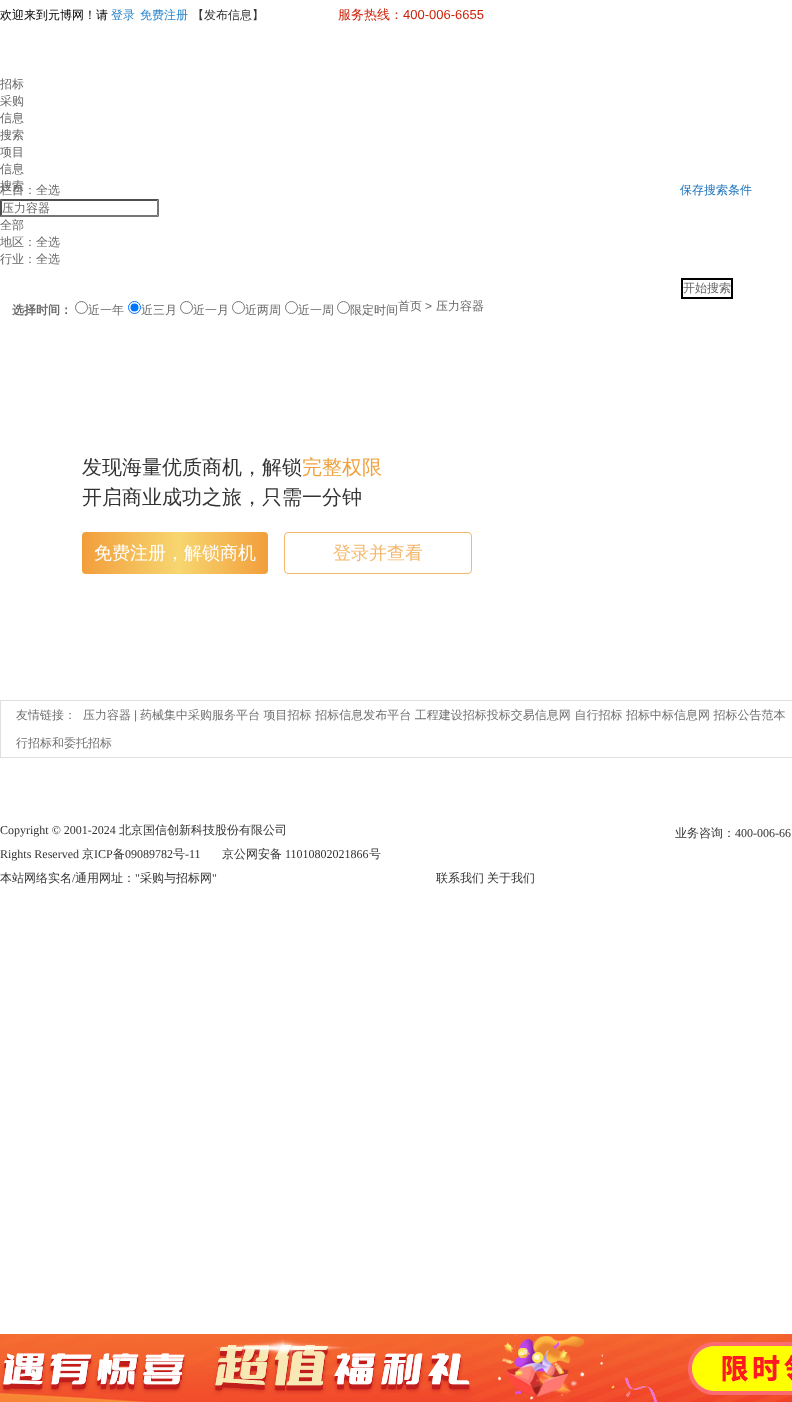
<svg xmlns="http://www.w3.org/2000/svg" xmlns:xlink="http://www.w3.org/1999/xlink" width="792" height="1402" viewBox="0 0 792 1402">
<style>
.cls-1{font:500 12px WenQuanYi Zen Hei;fill:#000000}
.cls-2{font:500 12px WenQuanYi Zen Hei;fill:#2b86cb}
.cls-3{font:500 12px WenQuanYi Zen Hei;fill:#333333}
.cls-4{font:500 13px WenQuanYi Zen Hei;fill:#cc2208}
.cls-5{font:13px Liberation Sans;fill:#cc2208}
.cls-6{font:500 12px WenQuanYi Zen Hei;fill:#666666}
.cls-7{font:500 12px WenQuanYi Zen Hei;fill:#2176bd}
.cls-8{font:bold 12px WenQuanYi Zen Hei;fill:#666666}
.cls-9{font:12px Liberation Sans;fill:#666666}
.cls-10{font:500 20px WenQuanYi Zen Hei;fill:#333333}
.cls-11{font:500 20px WenQuanYi Zen Hei;fill:#f0a13d}
.cls-12{font:500 18px WenQuanYi Zen Hei;fill:#ffffff}
.cls-13{font:500 18px WenQuanYi Zen Hei;fill:#f3b86d}
.cls-14{font:500 12px WenQuanYi Zen Hei;fill:#727171}
.cls-15{font:12px Liberation Sans;fill:#727171}
.cls-16{font:12px Liberation Serif;fill:#333333}
</style>
<defs>
<linearGradient id="g1" gradientUnits="userSpaceOnUse" x1="268" y1="553" x2="82" y2="553"><stop offset="0" stop-color="#f29e3b"/><stop offset="0.48" stop-color="#f7d670"/><stop offset="1" stop-color="#f29e3b"/></linearGradient>
</defs>
<rect width="100%" height="100%" fill="#ffffff"/>
<path fill="#4f4f4f" d="M0 199H159L157 201H2Z"/>
<path fill="#767676" d="M159 199V217L157 215V201Z"/>
<path fill="#767676" d="M159 217H0L2 215H157Z"/>
<path fill="#4f4f4f" d="M0 217V199L2 201V215Z"/>
<rect fill="none" stroke="#000000" stroke-width="2" x="682" y="279" width="50" height="19"/>
<circle fill="none" stroke="#767676" cx="81.5" cy="307.5" r="6"/>
<circle fill="none" stroke="#0075ff" cx="134.5" cy="307.5" r="6"/>
<circle fill="#0075ff" cx="134.5" cy="307.5" r="4"/>
<circle fill="none" stroke="#767676" cx="186.5" cy="307.5" r="6"/>
<circle fill="none" stroke="#767676" cx="238.5" cy="307.5" r="6"/>
<circle fill="none" stroke="#767676" cx="291.5" cy="307.5" r="6"/>
<circle fill="none" stroke="#767676" cx="343.5" cy="307.5" r="6"/>
<rect fill="url(#g1)" x="82" y="532" width="186" height="42" rx="4"/>
<rect fill="none" stroke="#f3b86d" x="284.5" y="532.5" width="187" height="41" rx="3.5"/>
<rect fill="none" stroke="#e0dfdf" x="0.5" y="700.5" width="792" height="57"/>
<image xlink:href="image0.png" x="0" y="1334" width="792" height="68"/>
<text class="cls-1" x="0" y="19">欢迎来到元博网！请</text>
<text class="cls-2" x="111" y="19">登录</text>
<text class="cls-2" x="140" y="19">免费注册</text>
<text class="cls-3" x="192" y="19">【发布信息】</text>
<text class="cls-4" x="338" y="19">服务热线：</text>
<text class="cls-5" x="403" y="19">400-006-6655</text>
<text class="cls-6"><tspan x="0" y="88">招标</tspan><tspan x="0" y="105">采购</tspan><tspan x="0" y="122">信息</tspan><tspan x="0" y="139">搜索</tspan><tspan x="0" y="156">项目</tspan><tspan x="0" y="173">信息</tspan><tspan x="0" y="190">搜索</tspan></text>
<text class="cls-7" x="680" y="194">保存搜索条件</text>
<text class="cls-6" x="0" y="194">栏目：全选</text>
<text class="cls-6" x="2" y="212">压力容器</text>
<text class="cls-6"><tspan x="0" y="229">全部</tspan><tspan x="0" y="246">地区：全选</tspan><tspan x="0" y="263">行业：全选</tspan></text>
<text class="cls-6" x="683" y="292">开始搜索</text>
<text class="cls-8" x="12" y="314">选择时间：</text>
<text class="cls-6" x="88" y="314">近一年</text>
<text class="cls-6" x="141" y="314">近三月</text>
<text class="cls-6" x="193" y="314">近一月</text>
<text class="cls-6" x="245" y="314">近两周</text>
<text class="cls-6" x="298" y="314">近一周</text>
<text class="cls-6" x="350" y="314">限定时间</text>
<text class="cls-6" x="398" y="310">首页</text>
<text class="cls-9" x="425" y="310">&gt;</text>
<text class="cls-6" x="436" y="310">压力容器</text>
<text class="cls-10" x="82" y="474">发现海量优质商机，解锁</text>
<text class="cls-11" x="302" y="474">完整权限</text>
<text class="cls-10" x="82" y="504">开启商业成功之旅，只需一分钟</text>
<text class="cls-12" x="94" y="559">免费注册，解锁商机</text>
<text class="cls-13" x="333" y="559">登录并查看</text>
<text class="cls-14" x="16" y="719">友情链接：</text>
<text class="cls-14" x="83" y="719">压力容器</text>
<text class="cls-15" x="134" y="719">|</text>
<text class="cls-14" x="140" y="719">药械集中采购服务平台 项目招标 招标信息发布平台 工程建设招标投标交易信息网 自行招标 招标中标信息网 招标公告范本</text>
<text class="cls-14" x="16" y="747">行招标和委托招标</text>
<text class="cls-16" x="0" y="834">Copyright © 2001-2024</text>
<text class="cls-3" x="119" y="834">北京国信创新科技股份有限公司</text>
<text class="cls-16" x="0" y="858">Rights Reserved</text>
<text class="cls-3" x="82" y="858">京</text>
<text class="cls-16" x="94" y="858">ICP</text>
<text class="cls-3" x="113" y="858">备</text>
<text class="cls-16" x="125" y="858">09089782</text>
<text class="cls-3" x="173" y="858">号</text>
<text class="cls-16" x="185" y="858">-11</text>
<text class="cls-3" x="222" y="858">京公网安备</text>
<text class="cls-16" x="285" y="858">11010802021866</text>
<text class="cls-3" x="369" y="858">号</text>
<text class="cls-3" x="0" y="882">本站网络实名</text>
<text class="cls-16" x="72" y="882">/</text>
<text class="cls-3" x="75" y="882">通用网址：</text>
<text class="cls-16" x="135" y="882">"</text>
<text class="cls-3" x="140" y="882">采购与招标网</text>
<text class="cls-16" x="212" y="882">"</text>
<text class="cls-3" x="436" y="882">联系我们</text>
<text class="cls-3" x="487" y="882">关于我们</text>
<text class="cls-3" x="675" y="837">业务咨询：</text>
<text class="cls-16" x="735" y="837">400-006-66</text>
</svg>
